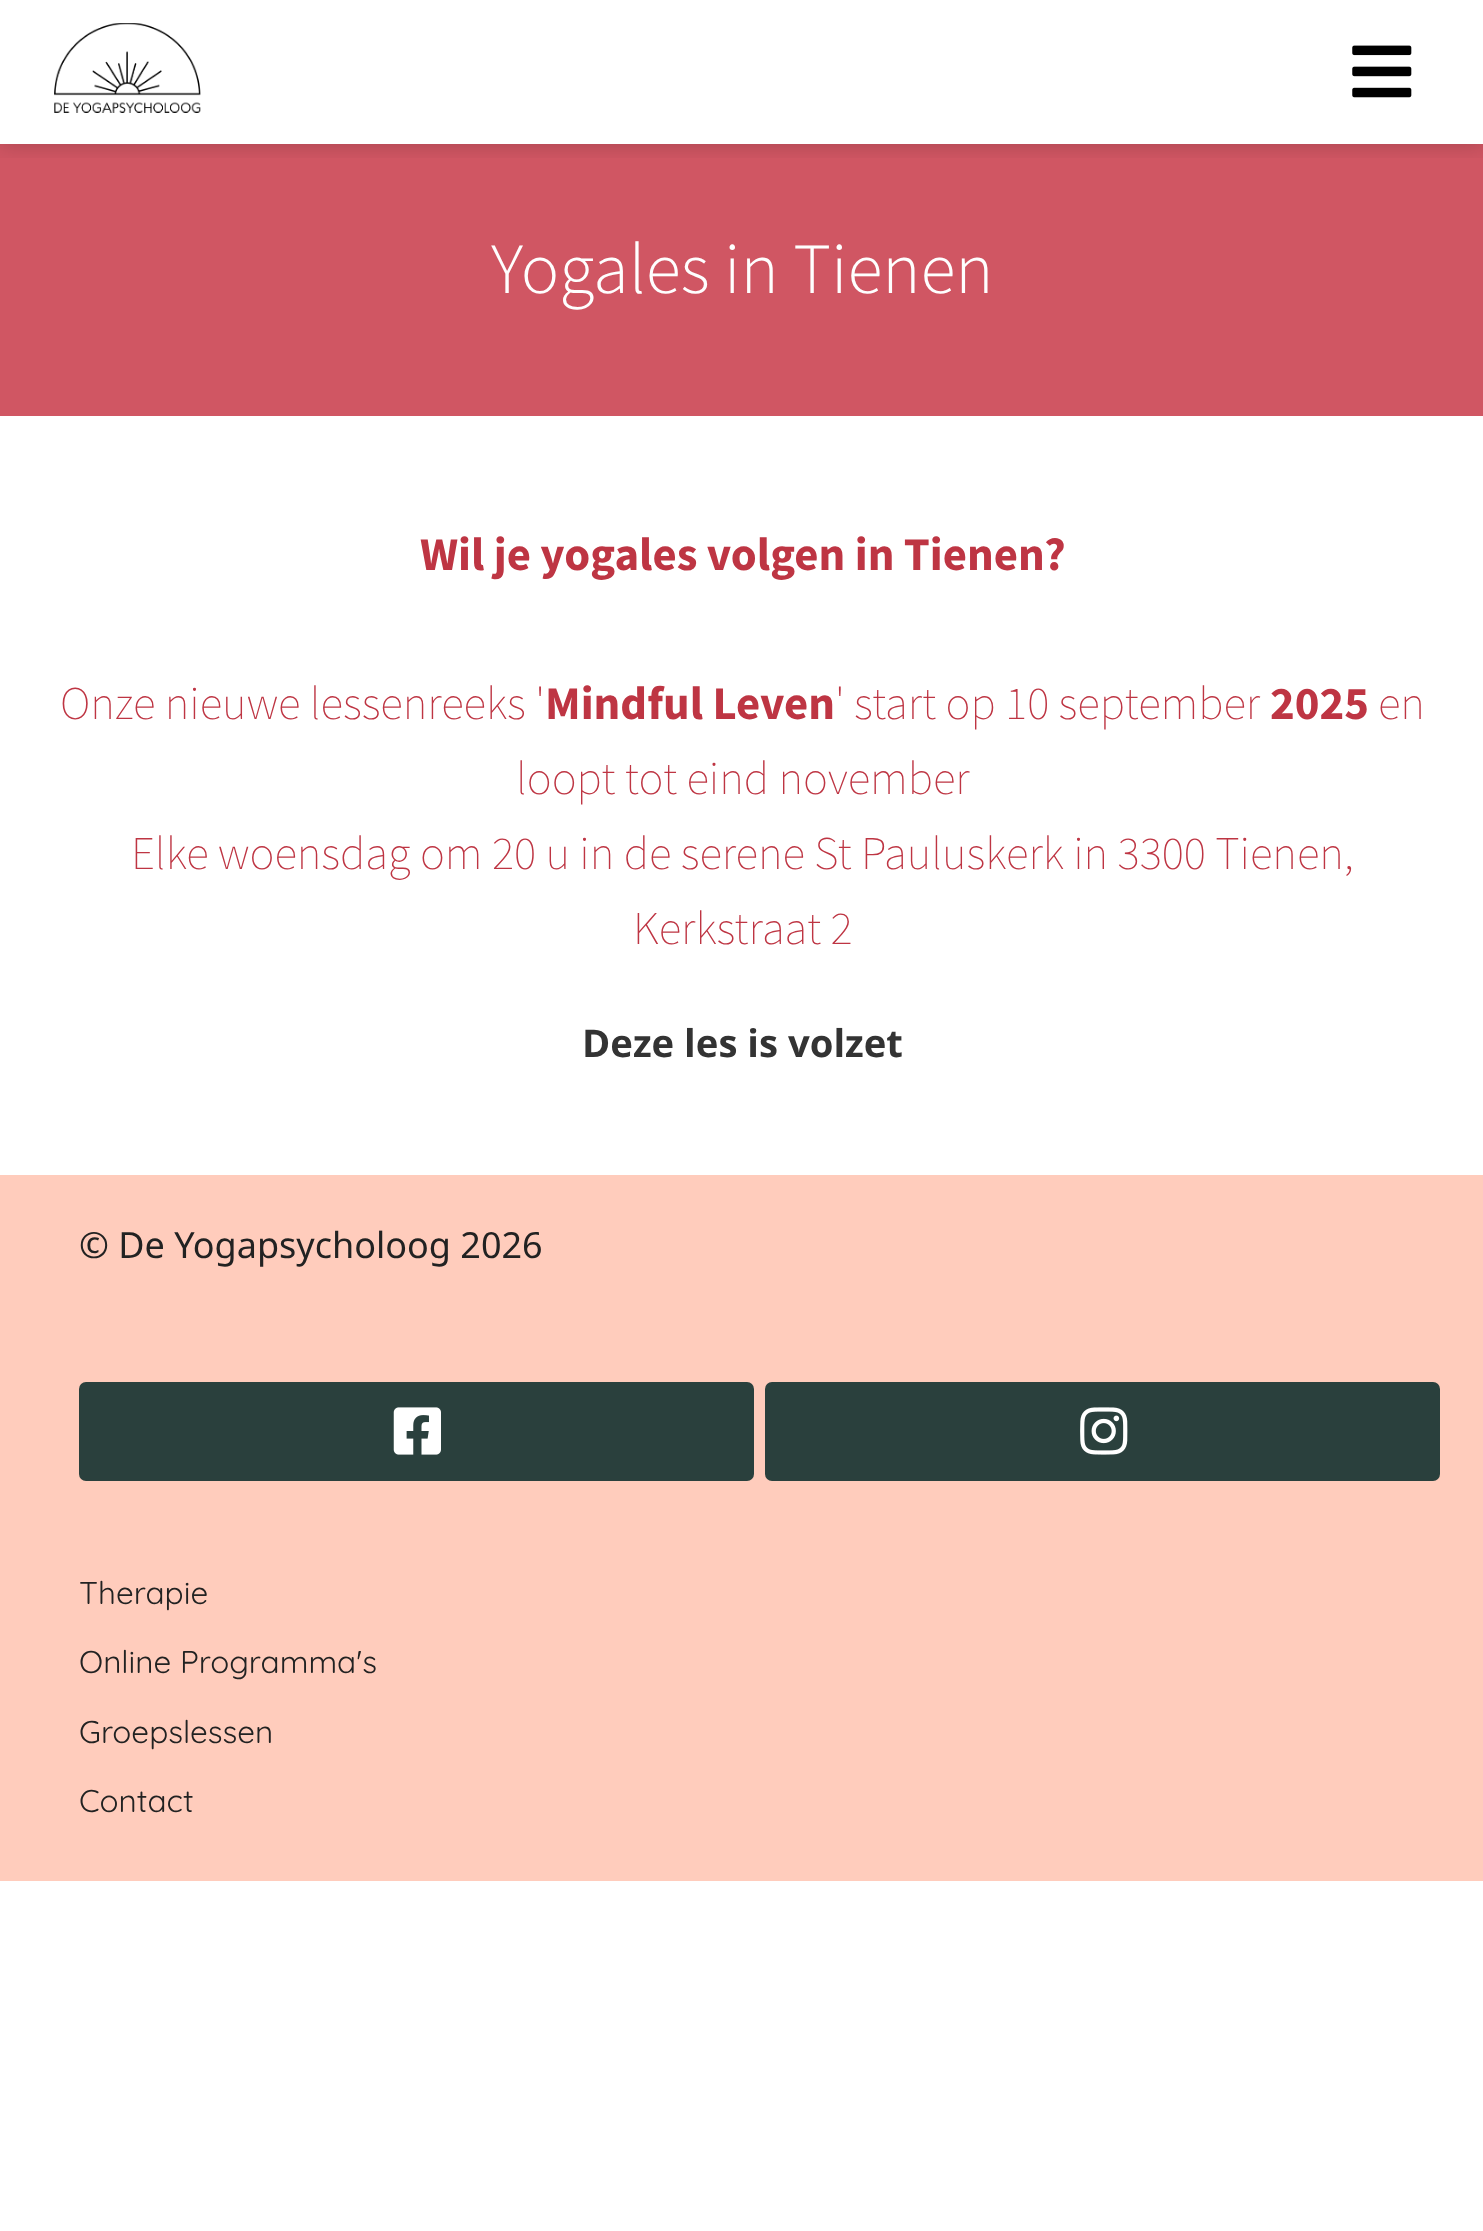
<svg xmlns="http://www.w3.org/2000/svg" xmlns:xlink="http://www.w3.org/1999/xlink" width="1483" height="2231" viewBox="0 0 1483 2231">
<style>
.cls-1{font:300 72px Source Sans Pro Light;fill:#fefefe}
.cls-2{font:bold 46.8px Source Sans Pro;fill:#be3543}
.cls-3{font:200 46.8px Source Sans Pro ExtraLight;fill:#be3543}
.cls-4{font:bold 38.25px Open Sans;fill:#333333}
.cls-5{font:36px Noto Sans;fill:#222222}
.cls-6{font:31.5px Quicksand;fill:#222222}
</style>
<defs>
<clipPath id="clip1"><rect x="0" y="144" width="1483" height="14"/></clipPath>
</defs>
<rect width="100%" height="100%" fill="#ffffff"/>
<rect fill="#d05663" x="0" y="144" width="1483" height="272"/>
<g clip-path="url(#clip1)">
<rect fill="#000000" fill-opacity="0.2" filter="blur(11px)" x="0" y="0" width="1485" height="144"/>
</g>
<image xlink:href="image0.png" x="54" y="23" width="147" height="90"/>
<image xlink:href="image1.png" x="1352" y="45" width="60" height="53"/>
<rect fill="#ffccbc" x="0" y="1175" width="1483" height="706"/>
<rect fill="#2a403d" x="79" y="1382" width="675" height="99" rx="7"/>
<image xlink:href="image2.png" x="393" y="1407" width="48" height="48"/>
<rect fill="#2a403d" x="765" y="1382" width="675" height="99" rx="7"/>
<image xlink:href="image3.png" x="1080" y="1407" width="48" height="48"/>
<text class="cls-1" x="491" y="293">Yogales in Tienen</text>
<text class="cls-2" x="420" y="570">Wil je yogales volgen in Tienen?</text>
<text class="cls-3" x="60" y="719">Onze nieuwe lessenreeks '</text>
<text class="cls-2" x="545" y="719">Mindful Leven</text>
<text class="cls-3" x="835" y="719">' start op 10 september</text>
<text class="cls-2" x="1270" y="719">2025</text>
<text class="cls-3" x="1378" y="719">en</text>
<text class="cls-3" x="516" y="794">loopt tot eind november</text>
<text class="cls-3" x="131" y="869">Elke woensdag om 20 u in de serene St Pauluskerk in 3300 Tienen,</text>
<text class="cls-3" x="633" y="944">Kerkstraat 2</text>
<text class="cls-4" x="582" y="1057">Deze les is volzet</text>
<text class="cls-5" x="79" y="1258">© De Yogapsycholoog 2026</text>
<text class="cls-6" x="79" y="1604">Therapie</text>
<text class="cls-6" x="79" y="1673">Online Programma's</text>
<text class="cls-6" x="79" y="1743">Groepslessen</text>
<text class="cls-6" x="79" y="1812">Contact</text>
</svg>
